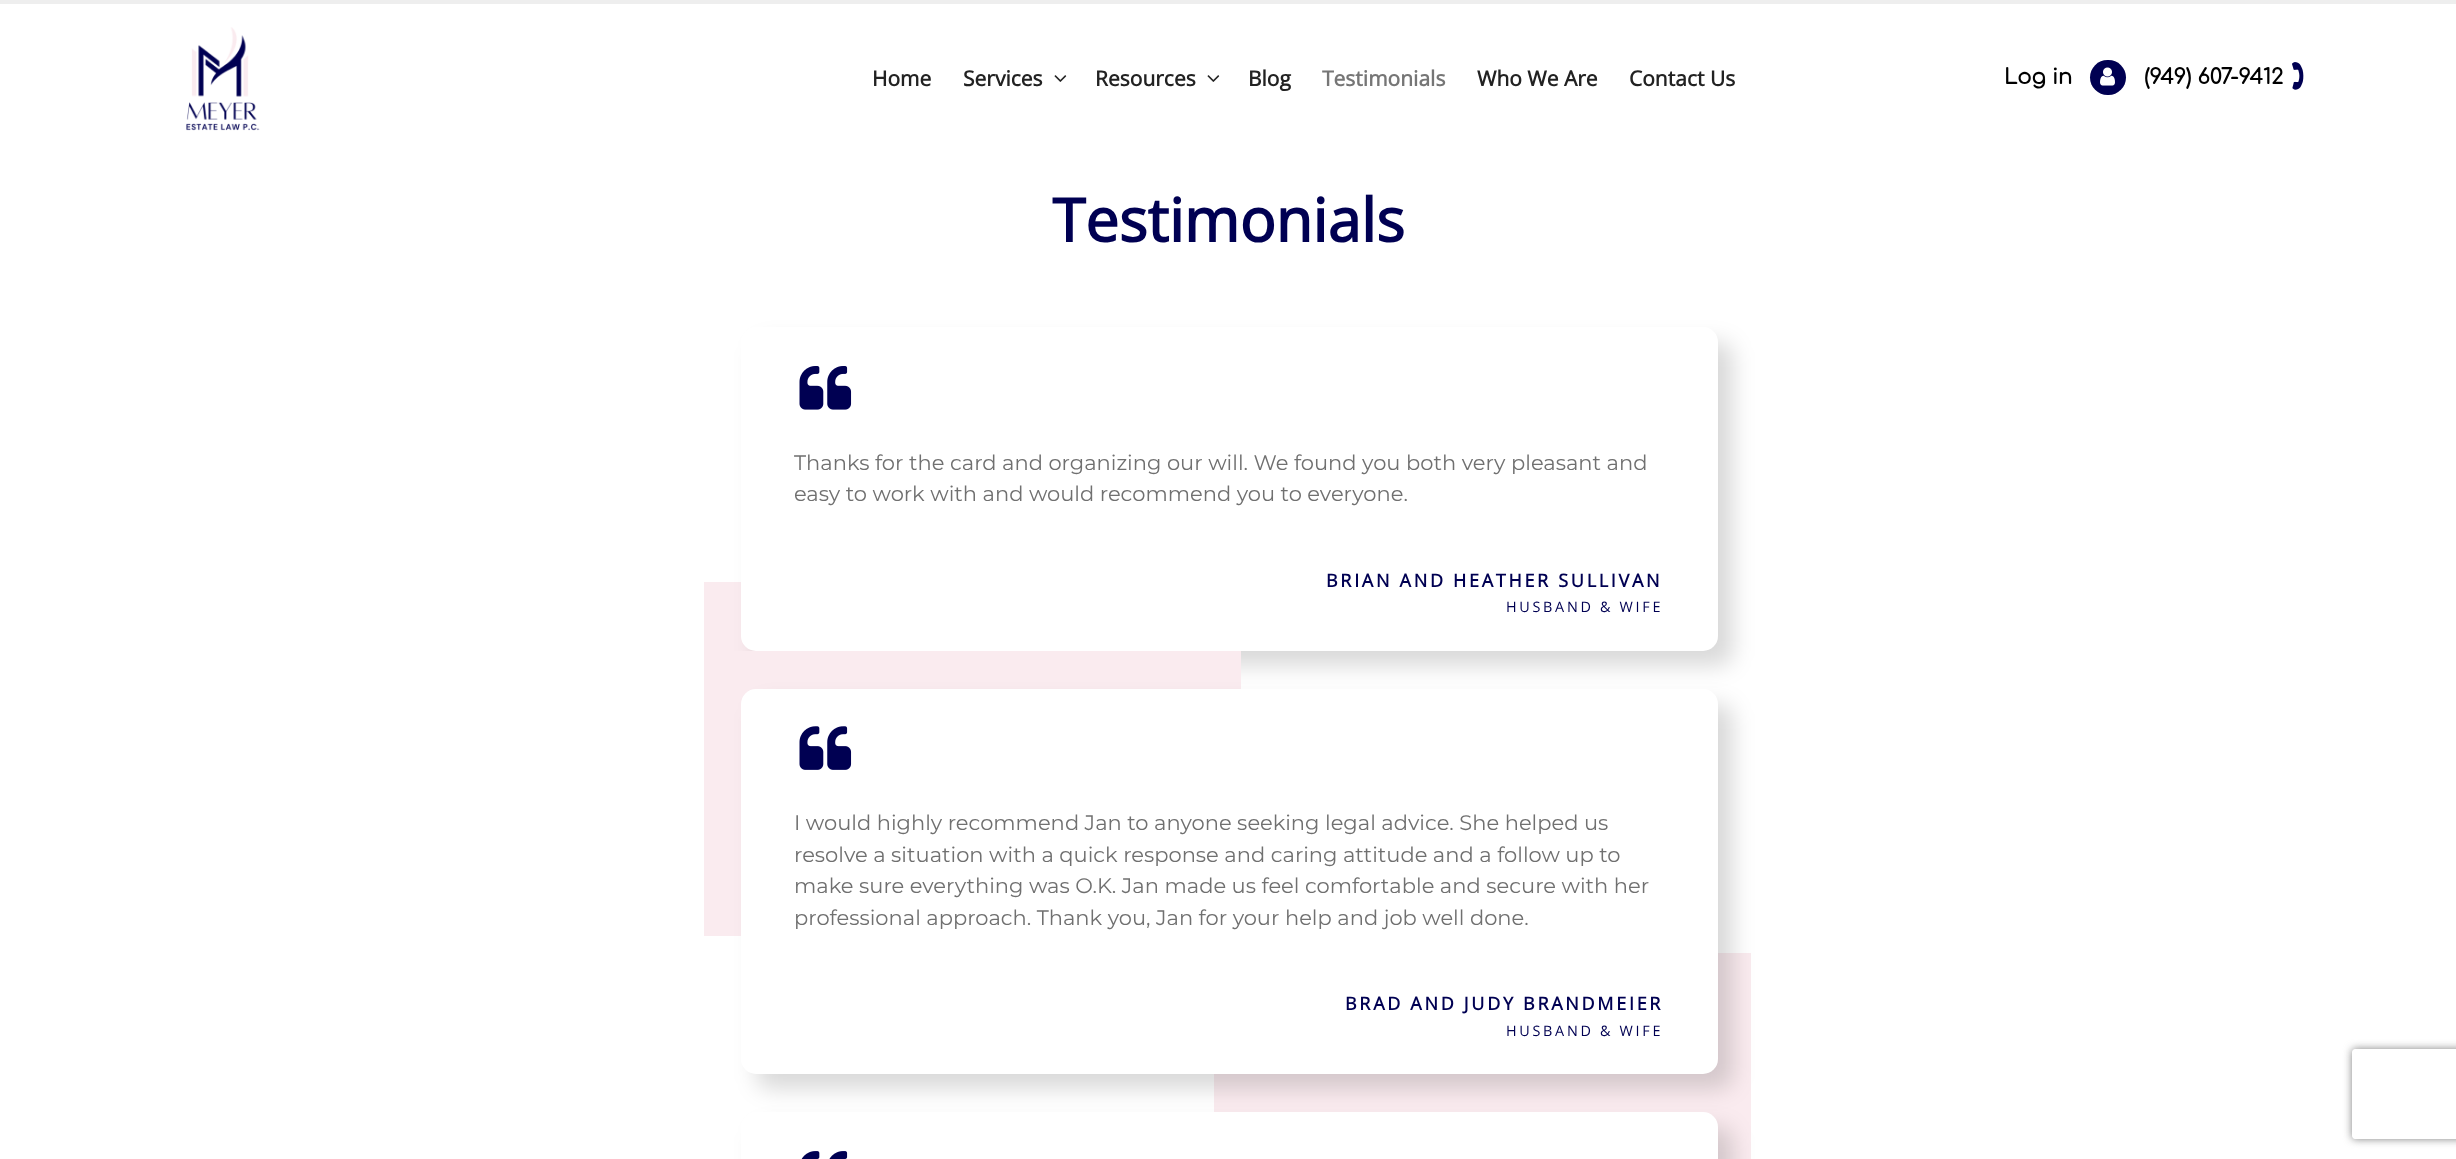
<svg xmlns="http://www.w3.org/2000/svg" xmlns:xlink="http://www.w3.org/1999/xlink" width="2456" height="1159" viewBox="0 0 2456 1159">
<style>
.cls-1{font:bold 21px Open Sans;fill:#222222}
.cls-2{font:bold 21px Open Sans;fill:#767676}
.cls-3{font:bold 21px Comfortaa;fill:#000000}
.cls-4{font:bold 60px Open Sans;fill:#000052}
.cls-5{font:21px Montserrat;fill:#707070}
.cls-6{font:bold 18px Open Sans;letter-spacing:2.7px;fill:#000052}
.cls-7{font:14.4px Open Sans;letter-spacing:2.7px;fill:#000052}
</style>
<defs>
<clipPath id="clip1"><path d="M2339 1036H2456V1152H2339ZM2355 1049H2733C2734.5 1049 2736 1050.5 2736 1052V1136C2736 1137.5 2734.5 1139 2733 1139H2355C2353.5 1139 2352 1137.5 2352 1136V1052C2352 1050.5 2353.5 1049 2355 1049Z" clip-rule="evenodd"/></clipPath>
</defs>
<rect width="100%" height="100%" fill="#ffffff"/>
<rect fill="#eeeeee" x="0" y="0" width="2456" height="4"/>
<image xlink:href="image0.png" x="186" y="27" width="74" height="104"/>
<image xlink:href="image1.png" x="1054" y="75" width="13" height="7"/>
<image xlink:href="image1.png" x="1207" y="75" width="13" height="7"/>
<rect fill="#000052" x="2090" y="60" width="36" height="35" rx="17.5"/>
<image xlink:href="image2.png" x="2100" y="67" width="15" height="19"/>
<image xlink:href="image3.png" x="2292" y="62" width="12" height="28"/>
<rect fill="#faebef" x="704" y="582" width="52" height="69"/>
<rect fill="#000000" fill-opacity="0.15" filter="blur(11px)" x="756" y="342" width="977" height="324" rx="15"/>
<rect fill="#ffffff" x="741" y="327" width="977" height="324" rx="15"/>
<image xlink:href="image4.png" x="799" y="366" width="53" height="44"/>
<rect fill="#faebef" x="704" y="651" width="537" height="285"/>
<rect fill="#faebef" x="1214" y="953" width="537" height="206"/>
<rect fill="#000000" fill-opacity="0.15" filter="blur(11px)" x="756" y="704" width="977" height="385" rx="15"/>
<rect fill="#ffffff" x="741" y="689" width="977" height="385" rx="15"/>
<image xlink:href="image5.png" x="799" y="726" width="53" height="44"/>
<rect fill="#000000" fill-opacity="0.15" filter="blur(11px)" x="756" y="1127" width="977" height="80" rx="15"/>
<rect fill="#ffffff" x="741" y="1112" width="977" height="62" rx="15"/>
<image xlink:href="image6.png" x="801" y="1151" width="47" height="8"/>
<g clip-path="url(#clip1)">
<rect fill="#808080" filter="blur(4px)" x="2352" y="1049" width="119" height="90" rx="3"/>
</g>
<text class="cls-1" x="872" y="86">Home</text>
<text class="cls-1" x="963" y="86">Services</text>
<text class="cls-1" x="1095" y="86">Resources</text>
<text class="cls-1" x="1248" y="86">Blog</text>
<text class="cls-2" x="1322" y="86">Testimonials</text>
<text class="cls-1" x="1477" y="86">Who We Are</text>
<text class="cls-1" x="1629" y="86">Contact Us</text>
<text class="cls-3" x="2004" y="84">Log in</text>
<text class="cls-3" x="2144" y="84">(949) 607-9412</text>
<text class="cls-4" x="1052" y="242">Testimonials</text>
<text class="cls-5"><tspan x="794" y="470">Thanks for the card and organizing our will. We found you both very pleasant and</tspan><tspan x="794" y="501">easy to work with and would recommend you to everyone.</tspan></text>
<text class="cls-6" x="1326" y="587">BRIAN AND HEATHER SULLIVAN</text>
<text class="cls-7" x="1506" y="612">HUSBAND &amp; WIFE</text>
<text class="cls-5"><tspan x="794" y="830">I would highly recommend Jan to anyone seeking legal advice. She helped us</tspan><tspan x="794" y="862">resolve a situation with a quick response and caring attitude and a follow up to</tspan><tspan x="794" y="893">make sure everything was O.K. Jan made us feel comfortable and secure with her</tspan><tspan x="794" y="925">professional approach. Thank you, Jan for your help and job well done.</tspan></text>
<text class="cls-6" x="1345" y="1010">BRAD AND JUDY BRANDMEIER</text>
<text class="cls-7" x="1506" y="1036">HUSBAND &amp; WIFE</text>
</svg>
